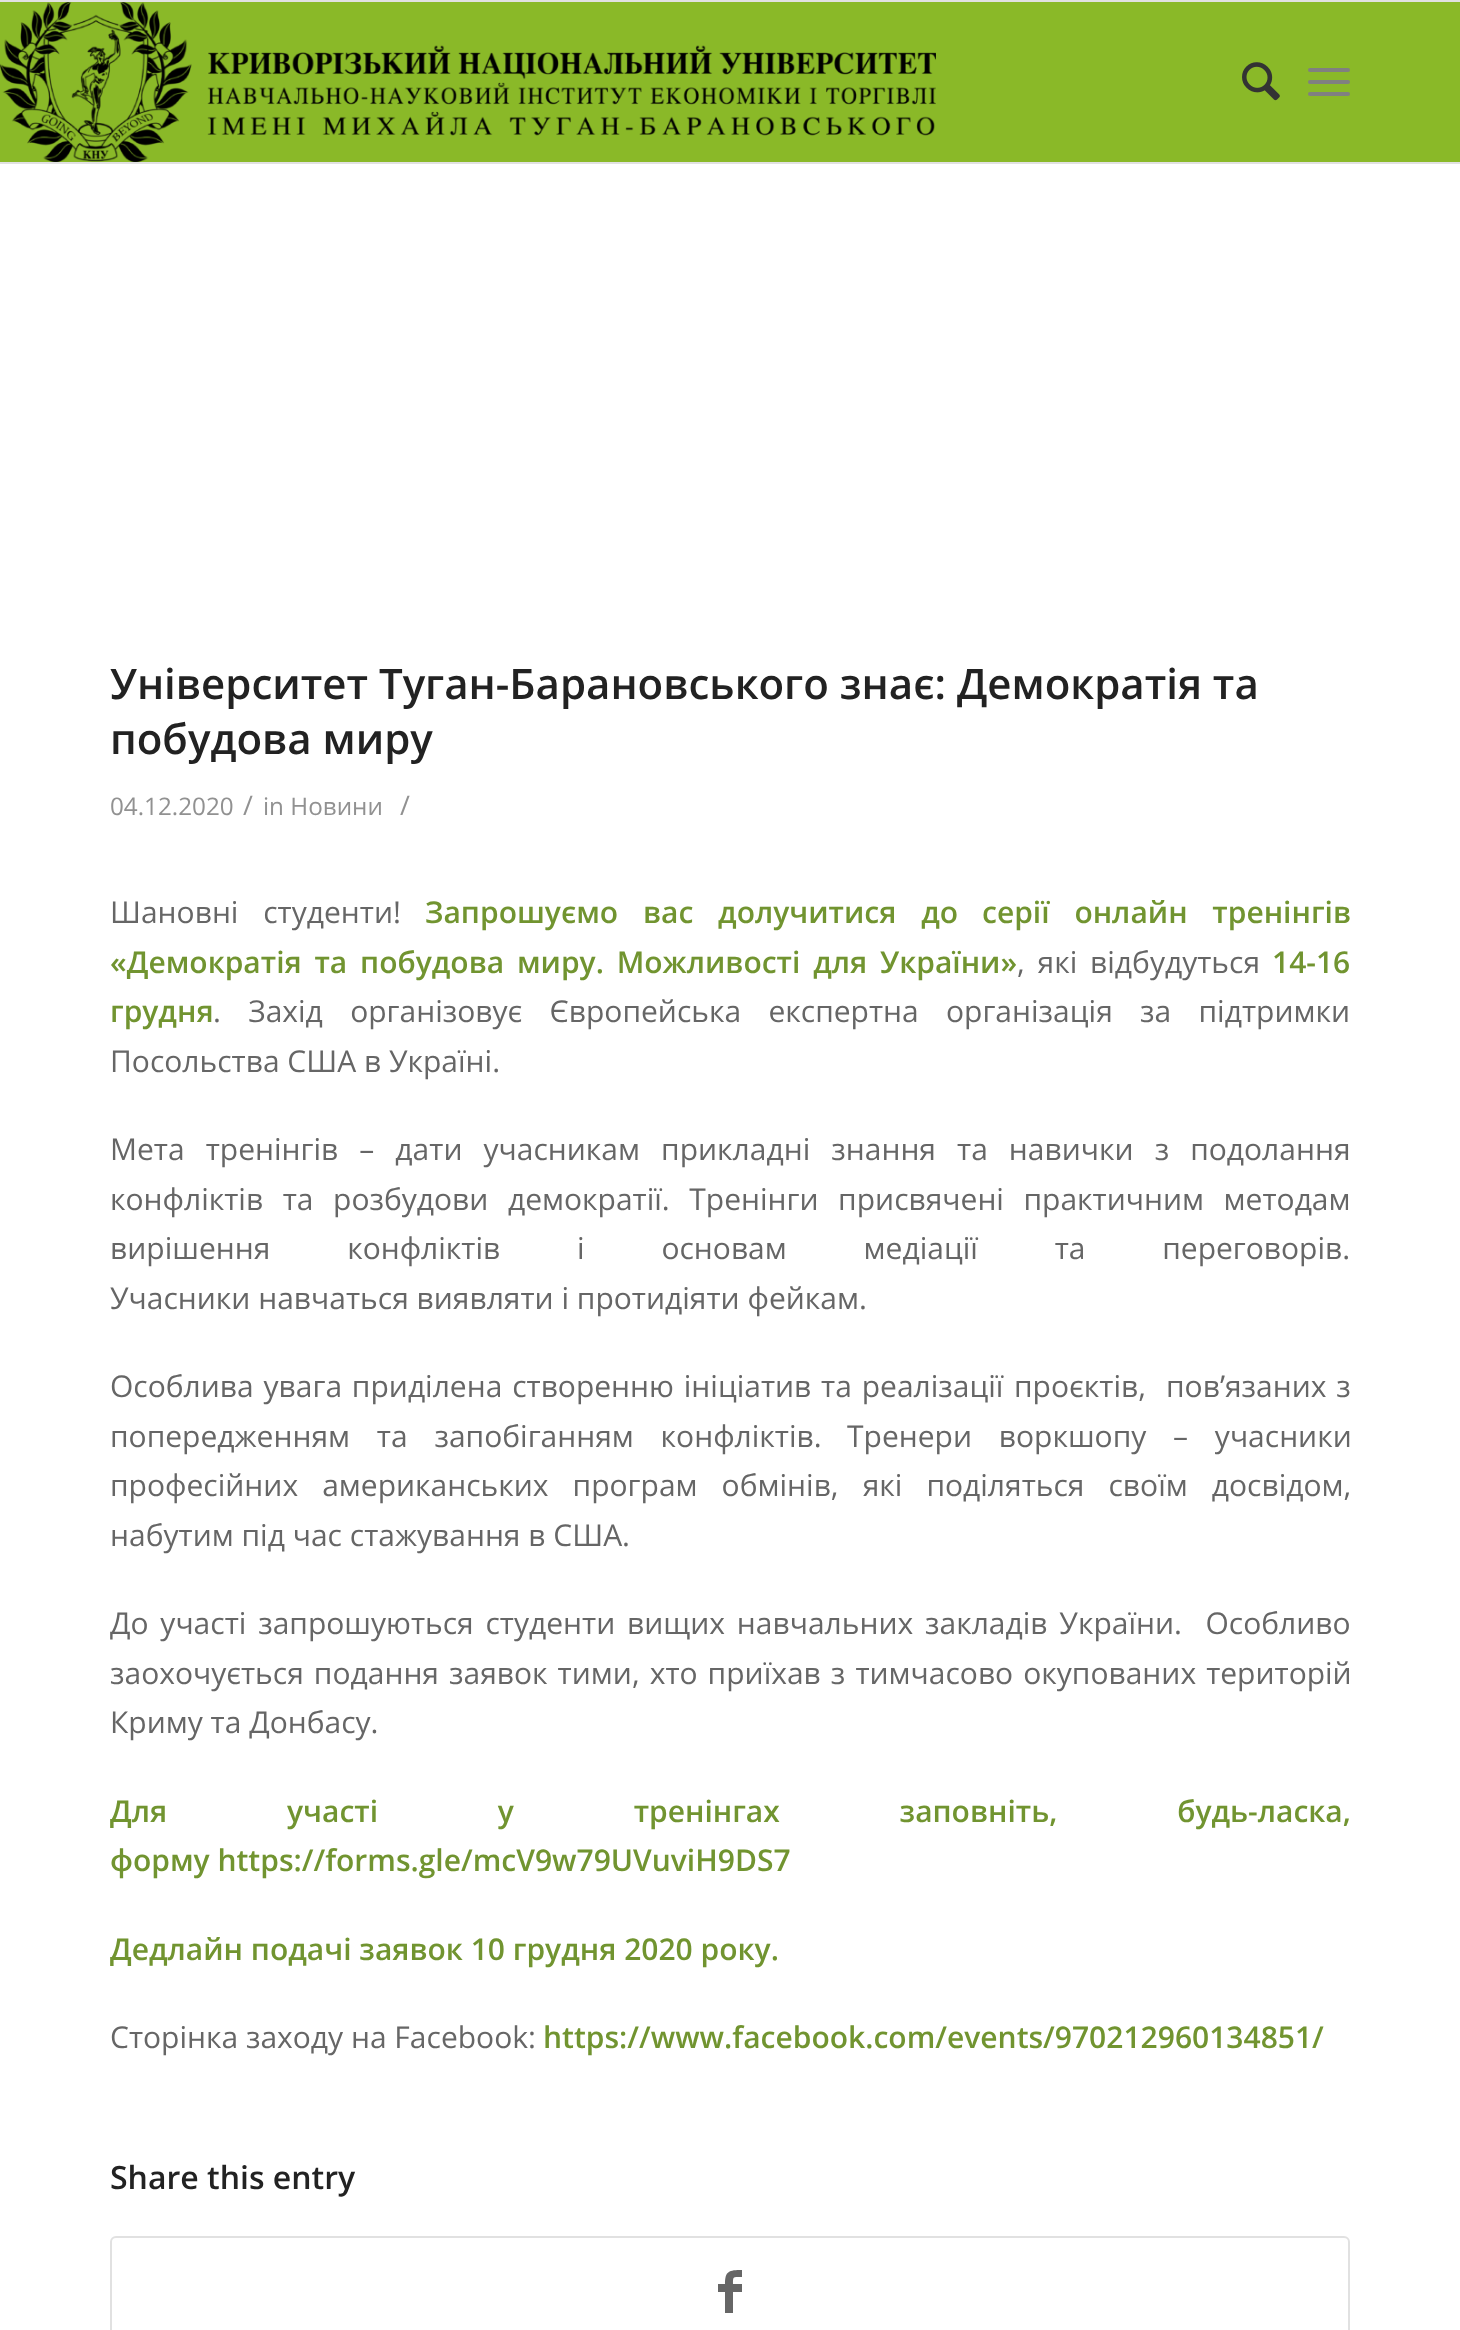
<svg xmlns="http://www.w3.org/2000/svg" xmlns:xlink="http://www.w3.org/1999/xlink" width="1460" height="2330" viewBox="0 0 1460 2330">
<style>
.cls-1{font:600 42px Open Sans;fill:#222222}
.cls-2{font:24.25px Open Sans;fill:#919191}
.cls-3{font:27px Open Sans;fill:#919191}
.cls-4{font:30px Open Sans;fill:#666666}
.cls-5{font:600 30px Open Sans;fill:#719430}
.cls-6{font:600 32px Open Sans;fill:#222222}
</style>
<defs>
<clipPath id="clip1"><rect x="110" y="658" width="1240" height="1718"/></clipPath>
</defs>
<rect width="100%" height="100%" fill="#ffffff"/>
<rect fill="#8ab928" x="0" y="2" width="1460" height="160"/>
<rect fill="#e1e1e1" x="0" y="0" width="1460" height="2"/>
<rect fill="#e1e1e1" x="0" y="162" width="1460" height="2"/>
<image xlink:href="image0.png" x="0" y="2" width="936" height="160"/>
<image xlink:href="image1.png" x="1242" y="62" width="38" height="39"/>
<rect fill="#808080" x="1308" y="80" width="42" height="4" rx="2"/>
<rect fill="#808080" x="1308" y="68" width="42" height="4" rx="2"/>
<rect fill="#808080" x="1308" y="92" width="42" height="4" rx="2"/>
<rect fill="none" stroke="#e1e1e1" stroke-width="2" x="111" y="2237" width="1238" height="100" rx="5"/>
<path fill="#666666" d="M742 2277C733 2277 733 2276 733 2284H742V2292H733V2313H725V2292H718V2284H725C725 2271 729 2270 742 2270Z"/>
<text class="cls-1"><tspan x="110" y="699">Університет Туган-Барановського знає: Демократія та</tspan><tspan x="110" y="754">побудова миру</tspan></text>
<text class="cls-2" x="110" y="815">04.12.2020</text>
<text class="cls-3" x="243" y="815">/</text>
<text class="cls-2" x="263" y="815">in Новини</text>
<text class="cls-3" x="400" y="815">/</text>
<text class="cls-4" x="110" y="923" word-spacing="17">Шановні студенти!</text>
<text class="cls-5" x="425" y="923" word-spacing="17">Запрошуємо вас долучитися до</text>
<text class="cls-5" x="982" y="923" word-spacing="17">серії онлайн тренінгів</text>
<text class="cls-5" x="110" y="973" word-spacing="5">«Демократія та побудова миру. Можливості для України»</text>
<text class="cls-4" x="1017" y="973" word-spacing="5">, які відбудуться</text>
<text class="cls-5" x="1272" y="973">14-16</text>
<text class="cls-5" x="110" y="1022">грудня</text>
<text class="cls-4" x="213" y="1022" word-spacing="19.5">. Захід організовує Європейська експертна організація за підтримки</text>
<text class="cls-4" x="110" y="1072">Посольства США в Україні.</text>
<text class="cls-4"><tspan x="110" y="1160" word-spacing="13.25">Мета тренінгів – дати учасникам прикладні знання та навички з подолання</tspan><tspan x="110" y="1210" word-spacing="11.75">конфліктів та розбудови демократії. Тренінги присвячені практичним методам</tspan><tspan x="110" y="1259" word-spacing="69">вирішення конфліктів і основам медіації та переговорів.</tspan><tspan x="110" y="1309">Учасники навчаться виявляти і протидіяти фейкам.</tspan></text>
<text class="cls-4" x="110" y="1397" word-spacing="2">Особлива увага приділена створенню ініціатив та реалізації</text>
<text class="cls-4" x="1014" y="1397">проєктів,</text>
<text class="cls-4" x="1166" y="1397" word-spacing="2">пов’язаних з</text>
<text class="cls-4" x="110" y="1447" word-spacing="19">попередженням та запобіганням конфліктів.</text>
<text class="cls-4" x="847" y="1447" word-spacing="19">Тренери воркшопу – учасники</text>
<text class="cls-4"><tspan x="110" y="1496" word-spacing="16.25">професійних американських програм обмінів, які поділяться своїм досвідом,</tspan><tspan x="110" y="1546">набутим під час стажування в США.</tspan></text>
<g clip-path="url(#clip1)">
<text class="cls-4" xml:space="preserve" x="110" y="1634" word-spacing="4">До участі запрошуються студенти вищих навчальних закладів України.  Особливо</text>
</g>
<text class="cls-4"><tspan x="110" y="1684" word-spacing="2.25">заохочується подання заявок тими, хто приїхав з тимчасово окупованих територій</tspan><tspan x="110" y="1733">Криму та Донбасу.</tspan></text>
<g clip-path="url(#clip1)">
<text class="cls-5" x="110" y="1822" word-spacing="112">Для участі у тренінгах заповніть, будь-ласка,</text>
</g>
<text class="cls-5" x="110" y="1871">форму https://forms.gle/mcV9w79UVuviH9DS7</text>
<g clip-path="url(#clip1)">
<text class="cls-5" x="110" y="1960">Дедлайн подачі заявок 10 грудня 2020 року.</text>
</g>
<text class="cls-4" x="110" y="2048">Сторінка заходу на Facebook:</text>
<text class="cls-5" x="543" y="2048">https://www.facebook.com/events/970212960134851/</text>
<text class="cls-6" x="110" y="2189">Share this entry</text>
</svg>
